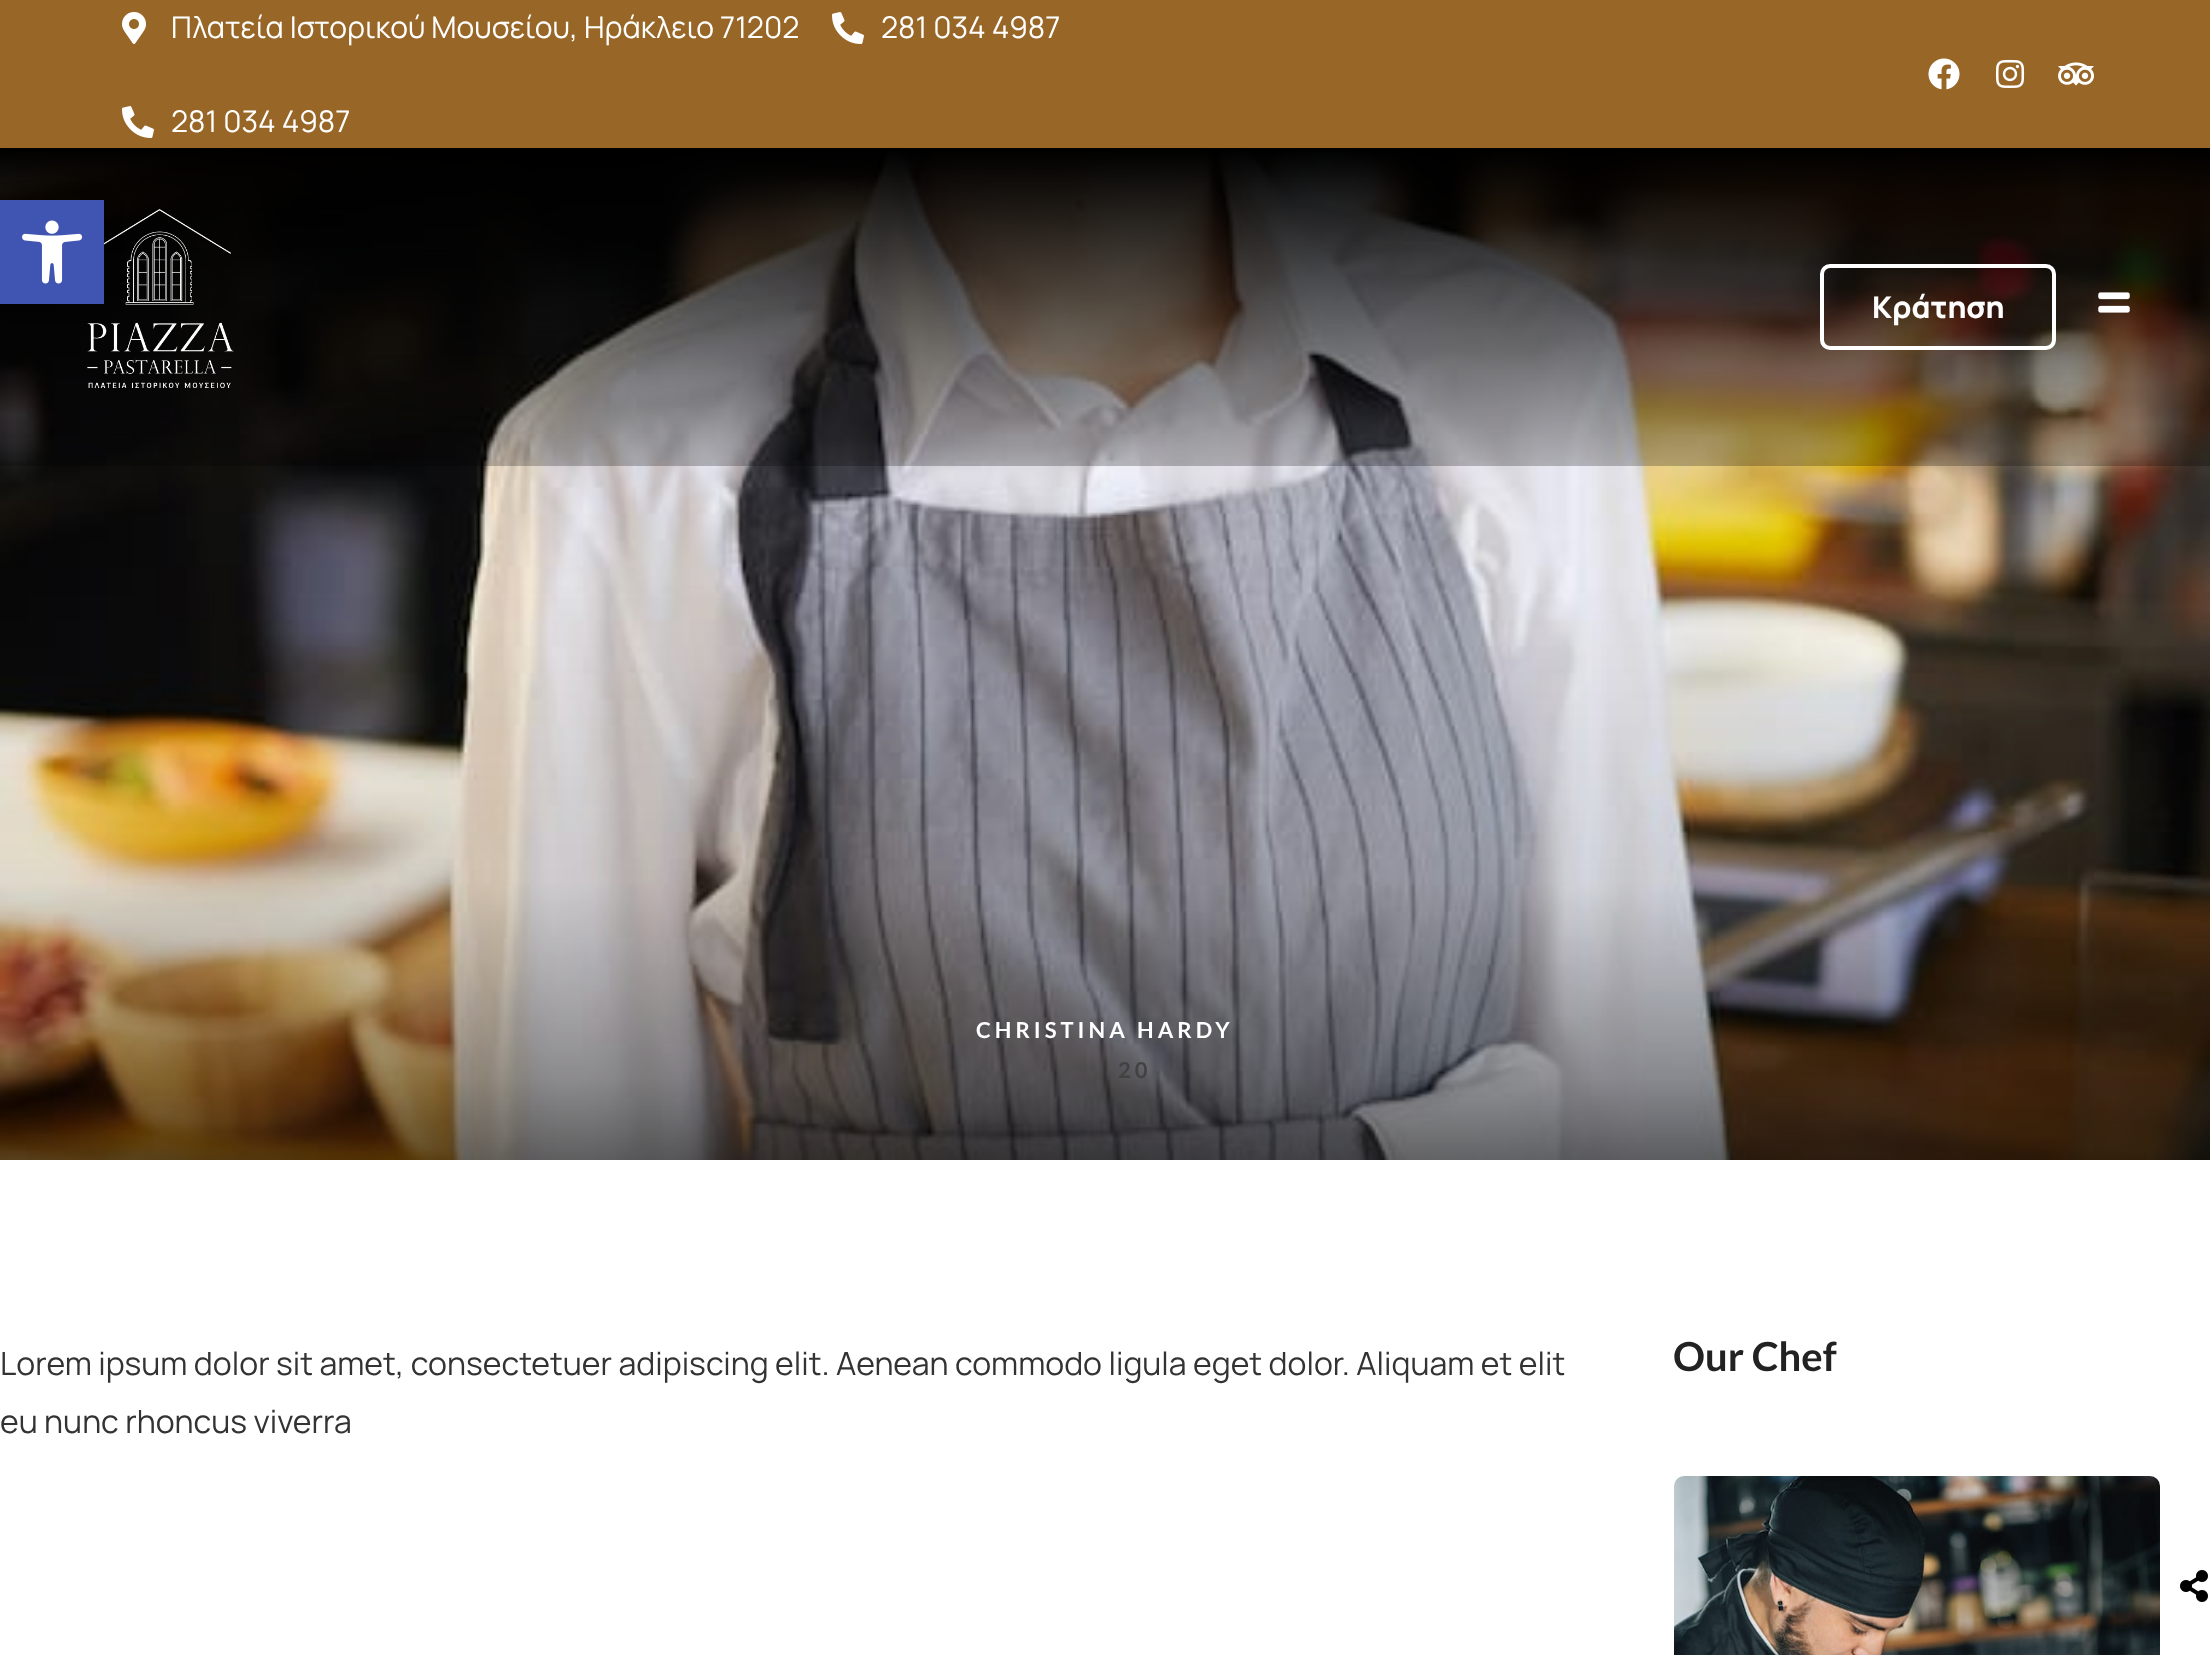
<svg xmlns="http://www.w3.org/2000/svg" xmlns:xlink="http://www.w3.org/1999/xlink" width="2210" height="1655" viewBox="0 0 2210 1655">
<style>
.cls-1{font:30px Manrope;fill:#ffffff}
.cls-2{font:800 30px Manrope;fill:#ffffff}
.cls-3{font:bold 22px Lato;letter-spacing:4px;fill:#ffffff}
.cls-4{font:bold 22px Lato;letter-spacing:4px;fill:#424242}
.cls-5{font:32px Manrope;fill:#333333}
.cls-6{font:bold 40px Lato;fill:#222222}
</style>
<rect width="100%" height="100%" fill="#ffffff"/>
<rect fill="#986727" x="0" y="0" width="2210" height="148"/>
<image xlink:href="image0.png" x="122" y="12" width="24" height="32"/>
<image xlink:href="image1.png" x="832" y="12" width="32" height="32"/>
<image xlink:href="image1.png" x="122" y="106" width="32" height="32"/>
<image xlink:href="image2.png" x="1928" y="58" width="32" height="32"/>
<image xlink:href="image3.png" x="1996" y="59" width="29" height="29"/>
<image xlink:href="image4.png" x="2058" y="62" width="36" height="24"/>
<image xlink:href="image7.png" x="0" y="148" width="2210" height="1012"/>
<image xlink:href="image5.png" x="87" y="208" width="147" height="180"/>
<rect fill="none" stroke="#ffffff" stroke-width="4" x="1822" y="266" width="232" height="82" rx="8"/>
<image xlink:href="image6.png" x="2098" y="292" width="32" height="21"/>
<image xlink:href="image8.png" x="1674" y="1476" width="486" height="179"/>
<image xlink:href="image9.png" x="2180" y="1570" width="28" height="32"/>
<rect fill="#000000" fill-opacity="0.1" filter="blur(10px)" x="0" y="200" width="104" height="104"/>
<rect fill="#4054b2" x="0" y="200" width="104" height="104"/>
<image xlink:href="image10.png" x="22" y="220" width="61" height="64"/>
<text class="cls-1" x="171" y="38">Πλατεία Ιστορικού Μουσείου, Ηράκλειο 71202</text>
<text class="cls-1" x="881" y="38">281 034 4987</text>
<text class="cls-1" x="171" y="132">281 034 4987</text>
<text class="cls-2" x="1872" y="318">Κράτηση</text>
<text class="cls-3" x="976" y="1038">CHRISTINA HARDY</text>
<text class="cls-4" x="1118" y="1078">20</text>
<text class="cls-5"><tspan x="0" y="1375">Lorem ipsum dolor sit amet, consectetuer adipiscing elit. Aenean commodo ligula eget dolor. Aliquam et elit</tspan><tspan x="0" y="1433">eu nunc rhoncus viverra</tspan></text>
<text class="cls-6" x="1673" y="1371">Our Chef</text>
</svg>
